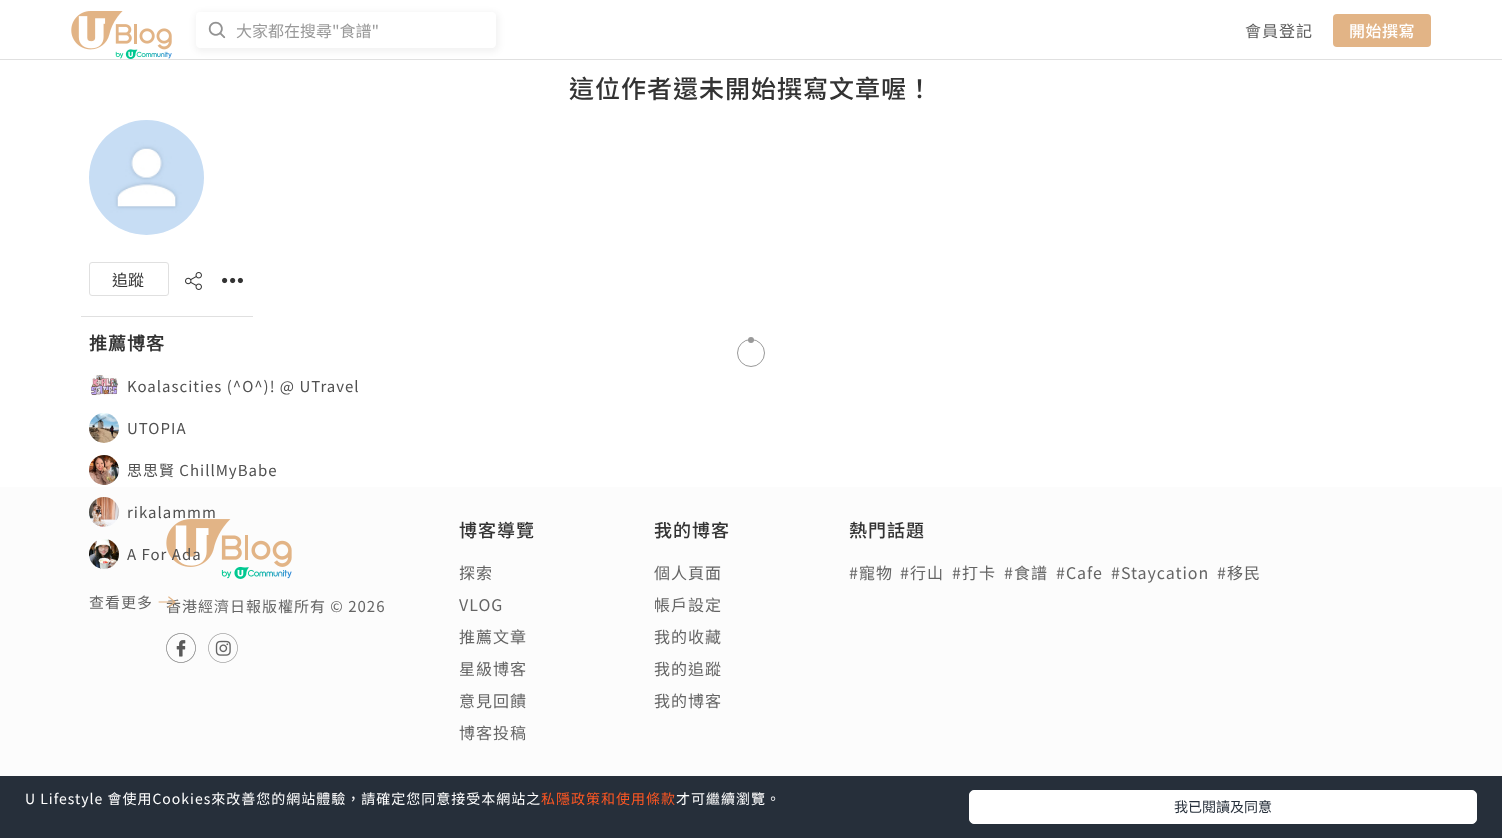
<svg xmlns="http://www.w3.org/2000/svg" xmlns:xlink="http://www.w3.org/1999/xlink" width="1502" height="838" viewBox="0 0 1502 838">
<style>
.cls-1{font:16px Noto Sans TC;fill:#999999}
.cls-2{font:16px Noto Sans TC;letter-spacing:1px;fill:#5c5c5c}
.cls-3{font:500 16px Noto Sans TC;letter-spacing:0.5px;fill:#ffffff}
.cls-4{font:500 25px Noto Sans TC;letter-spacing:1px;fill:#333333}
.cls-5{font:16px Noto Sans TC;fill:#333333}
.cls-6{font:bold 18px Noto Sans CJK HK;letter-spacing:1px;fill:#333333}
.cls-7{font:15px Noto Sans TC;letter-spacing:1px;fill:#505050}
.cls-8{font:15px Noto Sans TC;letter-spacing:1px;fill:#656565}
.cls-9{font:500 18px Noto Sans TC;letter-spacing:1px;fill:#333333}
.cls-10{font:16px Noto Sans TC;letter-spacing:1px;fill:#656565}
.cls-11{font:14px Noto Sans TC;letter-spacing:1px;fill:#ffffff}
.cls-12{font:14px Noto Sans TC;letter-spacing:1px;fill:#ff5722}
.cls-13{font:14px Noto Sans TC;fill:#262f3a}
</style>
<defs>
<clipPath id="clip1"><path d="M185 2H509V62H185ZM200 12H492C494 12 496 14 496 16V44C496 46 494 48 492 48H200C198 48 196 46 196 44V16C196 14 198 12 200 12Z" clip-rule="evenodd"/></clipPath>
<clipPath id="clip2"><rect x="119" y="461" width="158" height="18"/></clipPath>
</defs>
<rect width="100%" height="100%" fill="#ffffff"/>
<rect fill="#e0e0e0" x="0" y="59" width="1502" height="1"/>
<image xlink:href="image0.png" x="71" y="11" width="101" height="48"/>
<g clip-path="url(#clip1)">
<rect fill="#000000" fill-opacity="0.05" filter="blur(3px)" x="195" y="12" width="304" height="40" rx="6"/>
</g>
<image xlink:href="image1.png" x="208" y="21" width="18" height="18"/>
<rect fill="#e2b486" x="1333" y="14" width="98" height="33" rx="4"/>
<circle fill="none" stroke="#999999" cx="751" cy="353" r="13.5"/>
<circle fill="#999999" cx="751" cy="340" r="3"/>
<rect fill="#e0e0e0" x="81" y="316" width="172" height="1"/>
<image xlink:href="image2.png" x="89" y="120" width="115" height="115"/>
<rect fill="none" stroke="#e0e0e0" x="89.5" y="262.5" width="79" height="33" rx="2.5"/>
<image xlink:href="image3.png" x="185" y="272" width="17" height="18"/>
<image xlink:href="image4.png" x="222" y="277" width="21" height="7"/>
<image xlink:href="image5.png" x="90" y="375" width="29" height="21"/>
<image xlink:href="image6.png" x="89" y="413" width="30" height="30"/>
<image xlink:href="image7.png" x="89" y="455" width="30" height="30"/>
<rect fill="#fcfcfc" x="0" y="487" width="1502" height="289"/>
<image xlink:href="image8.png" x="89" y="497" width="30" height="30"/>
<image xlink:href="image9.png" x="89" y="539" width="30" height="30"/>
<image xlink:href="image11.png" x="166" y="519" width="126" height="60"/>
<image xlink:href="image12.png" x="166" y="633" width="30" height="30"/>
<image xlink:href="image13.png" x="208" y="633" width="30" height="30"/>
<rect fill="#262f3a" x="0" y="776" width="1502" height="62"/>
<rect fill="#ffffff" stroke="#ffffff" x="969.5" y="790.5" width="507" height="33" rx="4.5"/>
<text class="cls-1" x="236" y="37">大家都在搜尋"食譜"</text>
<text class="cls-2" x="1245" y="37">會員登記</text>
<text class="cls-3" x="1349" y="37">開始撰寫</text>
<text class="cls-4" x="569" y="98">這位作者還未開始撰寫文章喔！</text>
<text class="cls-5" x="112" y="286">追蹤</text>
<text class="cls-6" x="89" y="350">推薦博客</text>
<text class="cls-7" x="127" y="392">Koalascities (^O^)! @ UTravel</text>
<text class="cls-7" x="127" y="434">UTOPIA</text>
<g clip-path="url(#clip2)">
<text class="cls-7" x="127" y="476">思思賢 ChillMyBabe</text>
</g>
<text class="cls-7" x="127" y="518">rikalammm</text>
<text class="cls-7" x="127" y="560">A For Ada</text>
<text class="cls-8" x="89" y="608">查看更多</text>
<text class="cls-9" x="459" y="537">博客導覽</text>
<text class="cls-10" x="459" y="579">探索</text>
<text class="cls-10" x="459" y="611">VLOG</text>
<text class="cls-10" x="459" y="643">推薦文章</text>
<text class="cls-10" x="459" y="675">星級博客</text>
<text class="cls-10" x="459" y="707">意見回饋</text>
<text class="cls-10" x="459" y="739">博客投稿</text>
<text class="cls-9" x="654" y="537">我的博客</text>
<text class="cls-10" x="654" y="579">個人頁面</text>
<text class="cls-10" x="654" y="611">帳戶設定</text>
<text class="cls-10" x="654" y="643">我的收藏</text>
<text class="cls-10" x="654" y="675">我的追蹤</text>
<text class="cls-10" x="654" y="707">我的博客</text>
<text class="cls-9" x="849" y="537">熱門話題</text>
<text class="cls-10" x="849" y="579">#寵物</text>
<text class="cls-10" x="900" y="579">#行山</text>
<text class="cls-10" x="952" y="579">#打卡</text>
<text class="cls-10" x="1004" y="579">#食譜</text>
<text class="cls-10" x="1056" y="579">#Cafe</text>
<text class="cls-10" x="1111" y="579">#Staycation</text>
<text class="cls-10" x="1217" y="579">#移民</text>
<text class="cls-8" x="166" y="612">香港經濟日報版權所有 © 2026</text>
<image xlink:href="image10.png" x="158" y="596" width="18" height="12"/>
<text class="cls-11" x="25" y="804">U Lifestyle 會使用Cookies來改善您的網站體驗，請確定您同意接受本網站之</text>
<text class="cls-12" x="541" y="804">私隱政策和使用條款</text>
<text class="cls-11" x="676" y="804">才可繼續瀏覽。</text>
<text class="cls-13" x="1174" y="812">我已閱讀及同意</text>
</svg>
